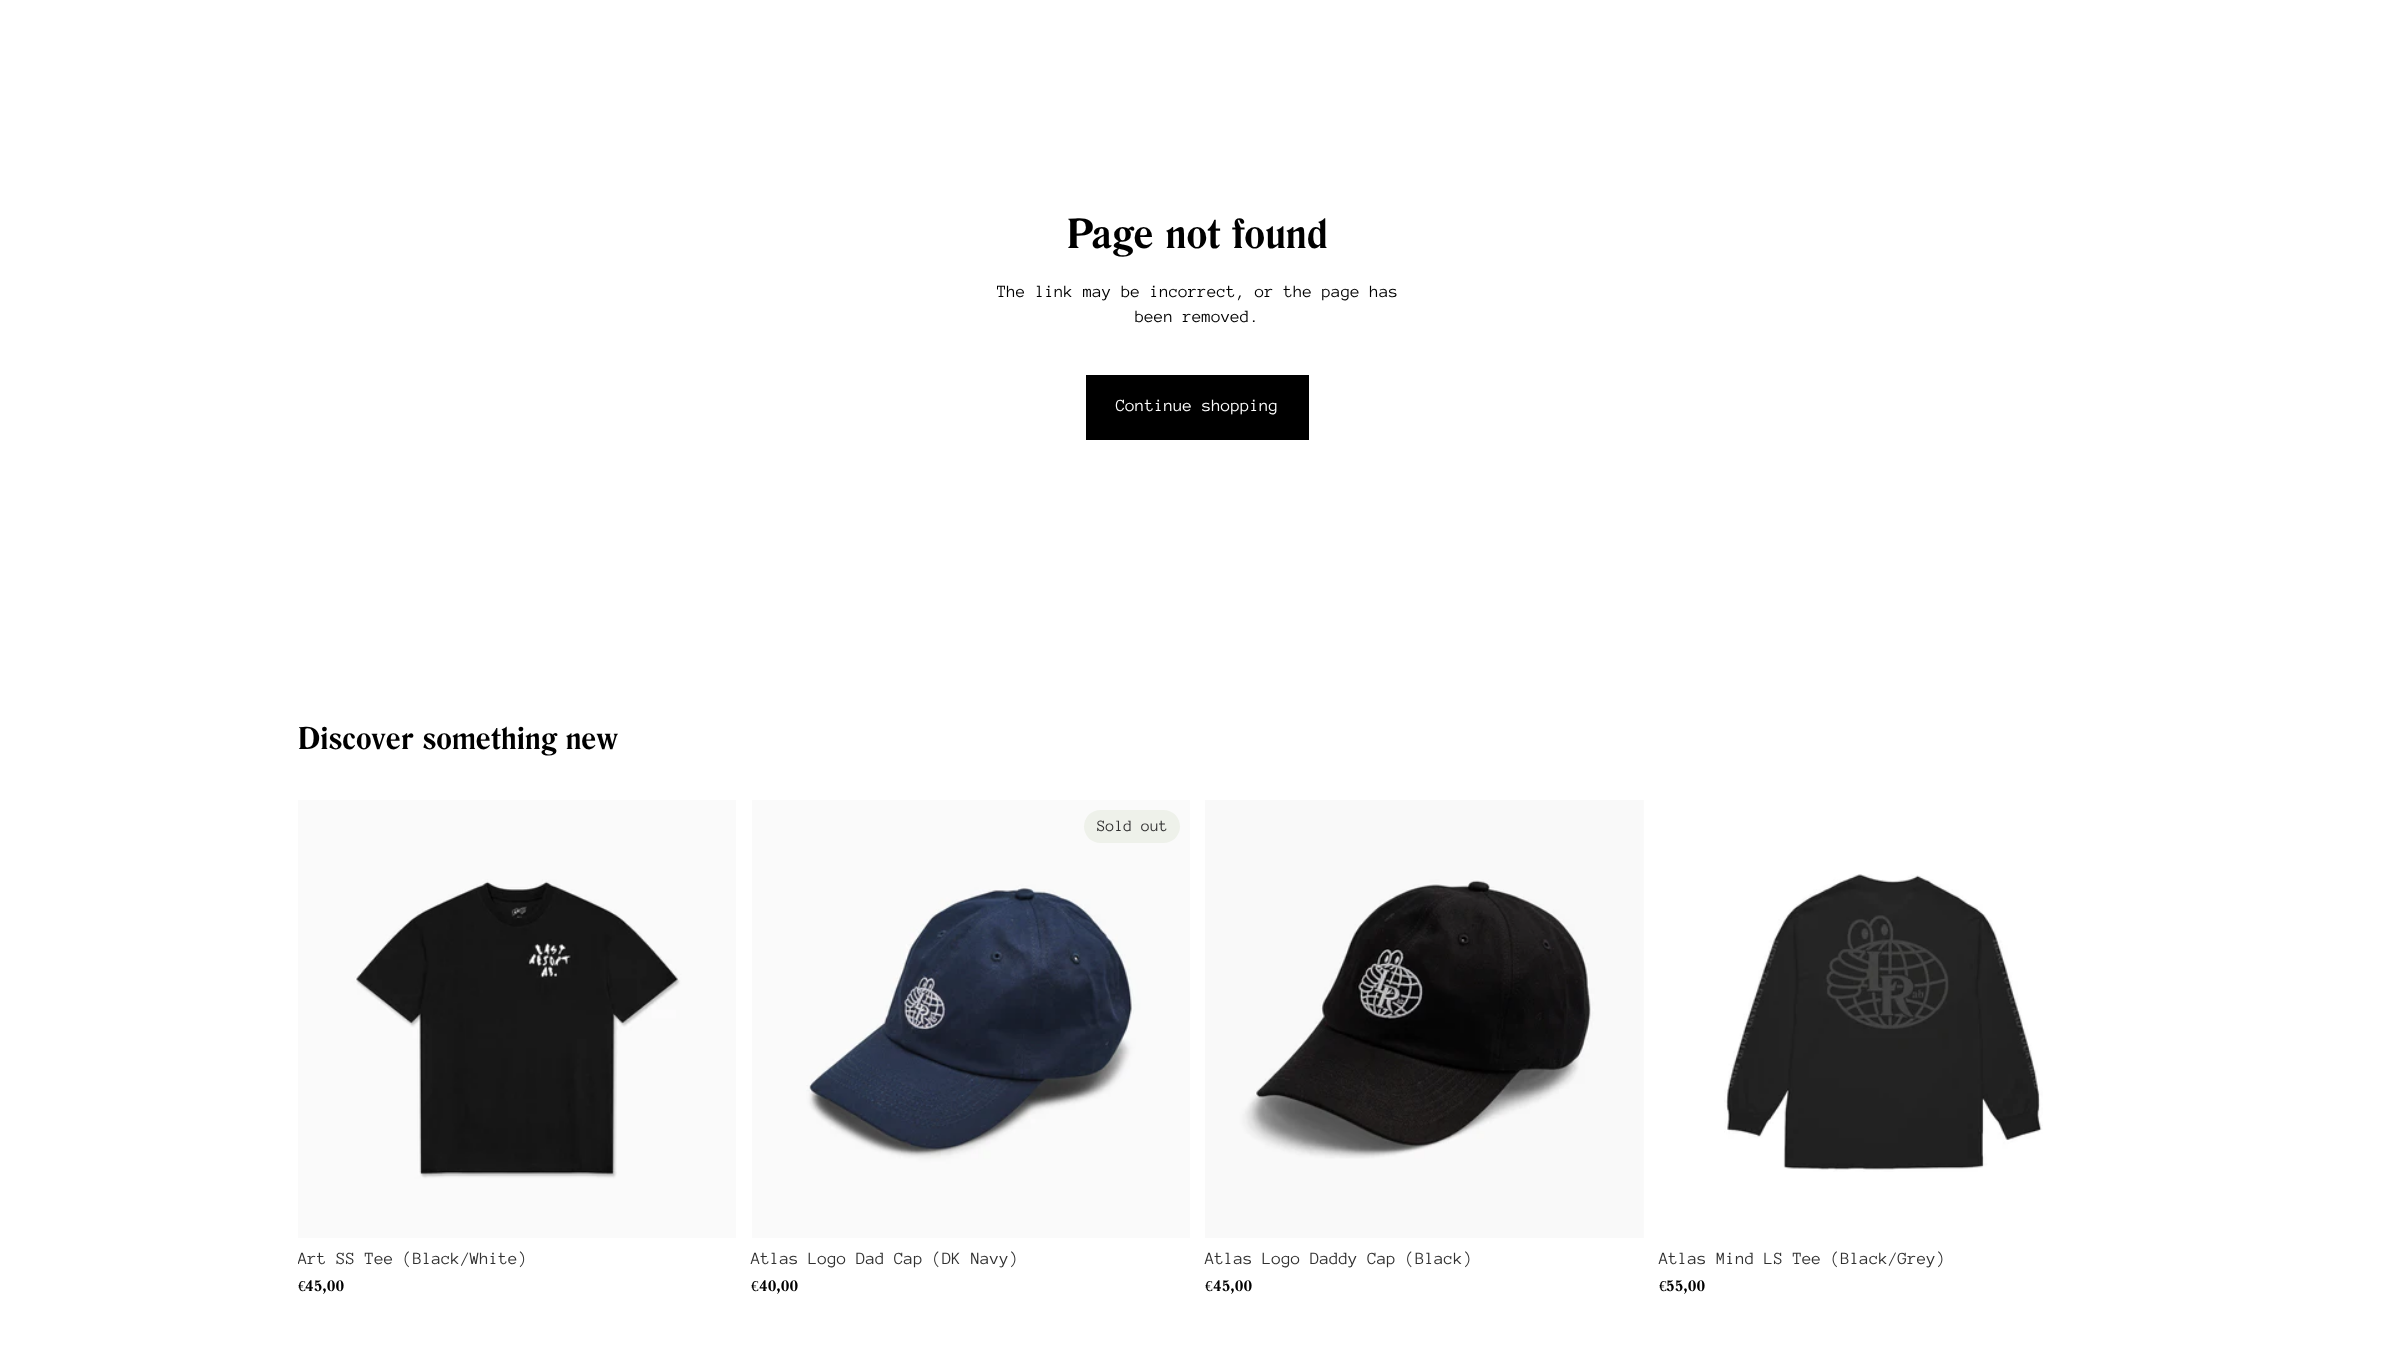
<svg xmlns="http://www.w3.org/2000/svg" xmlns:xlink="http://www.w3.org/1999/xlink" width="2395" height="1353" viewBox="0 0 2395 1353">
<style>
.cls-1{font:bold 40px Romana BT;fill:#000000}
.cls-2{font:17.5px Anonymous Pro;fill:#000000}
.cls-3{font:17.5px Anonymous Pro;fill:#ffffff}
.cls-4{font:bold 30px Romana BT;fill:#000000}
.cls-5{font:17.5px Anonymous Pro;fill:#303030}
.cls-6{font:15px Liberation Serif;fill:#000000}
.cls-7{font:bold 15px Romana BT;fill:#000000}
.cls-8{font:16.25px Anonymous Pro;fill:#303030}
</style>
<defs>
<clipPath id="clip1"><rect x="298" y="800" width="438" height="495"/></clipPath>
</defs>
<rect width="100%" height="100%" fill="#ffffff"/>
<rect fill="#000000" x="1086" y="375" width="223" height="65"/>
<image xlink:href="image0.png" x="298" y="800" width="438" height="438"/>
<image xlink:href="image1.png" x="752" y="800" width="438" height="438"/>
<rect fill="#eef1ea" x="1084" y="810" width="96" height="33" rx="16.5"/>
<image xlink:href="image2.png" x="1205" y="800" width="439" height="438"/>
<image xlink:href="image3.png" x="1724" y="874" width="319" height="298"/>
<text class="cls-1" x="1067" y="248">Page not found</text>
<text class="cls-2" x="997" y="297">The link may be incorrect, or the page has</text>
<text class="cls-2" x="1135" y="322">been removed.</text>
<text class="cls-3" x="1116" y="411">Continue shopping</text>
<text class="cls-4" x="298" y="749">Discover something new</text>
<g clip-path="url(#clip1)">
<text class="cls-5" x="298" y="1264">Art SS Tee (Black/White)</text>
<text class="cls-6" x="298" y="1291">€</text>
</g>
<text class="cls-7" x="305" y="1291">45,00</text>
<text class="cls-8" x="1097" y="831">Sold out</text>
<text class="cls-5" x="751" y="1264">Atlas Logo Dad Cap (DK Navy)</text>
<text class="cls-6" x="751" y="1291">€</text>
<text class="cls-7" x="759" y="1291">40,00</text>
<text class="cls-5" x="1205" y="1264">Atlas Logo Daddy Cap (Black)</text>
<text class="cls-6" x="1205" y="1291">€</text>
<text class="cls-7" x="1213" y="1291">45,00</text>
<text class="cls-5" x="1659" y="1264">Atlas Mind LS Tee (Black/Grey)</text>
<text class="cls-6" x="1659" y="1291">€</text>
<text class="cls-7" x="1666" y="1291">55,00</text>
</svg>
